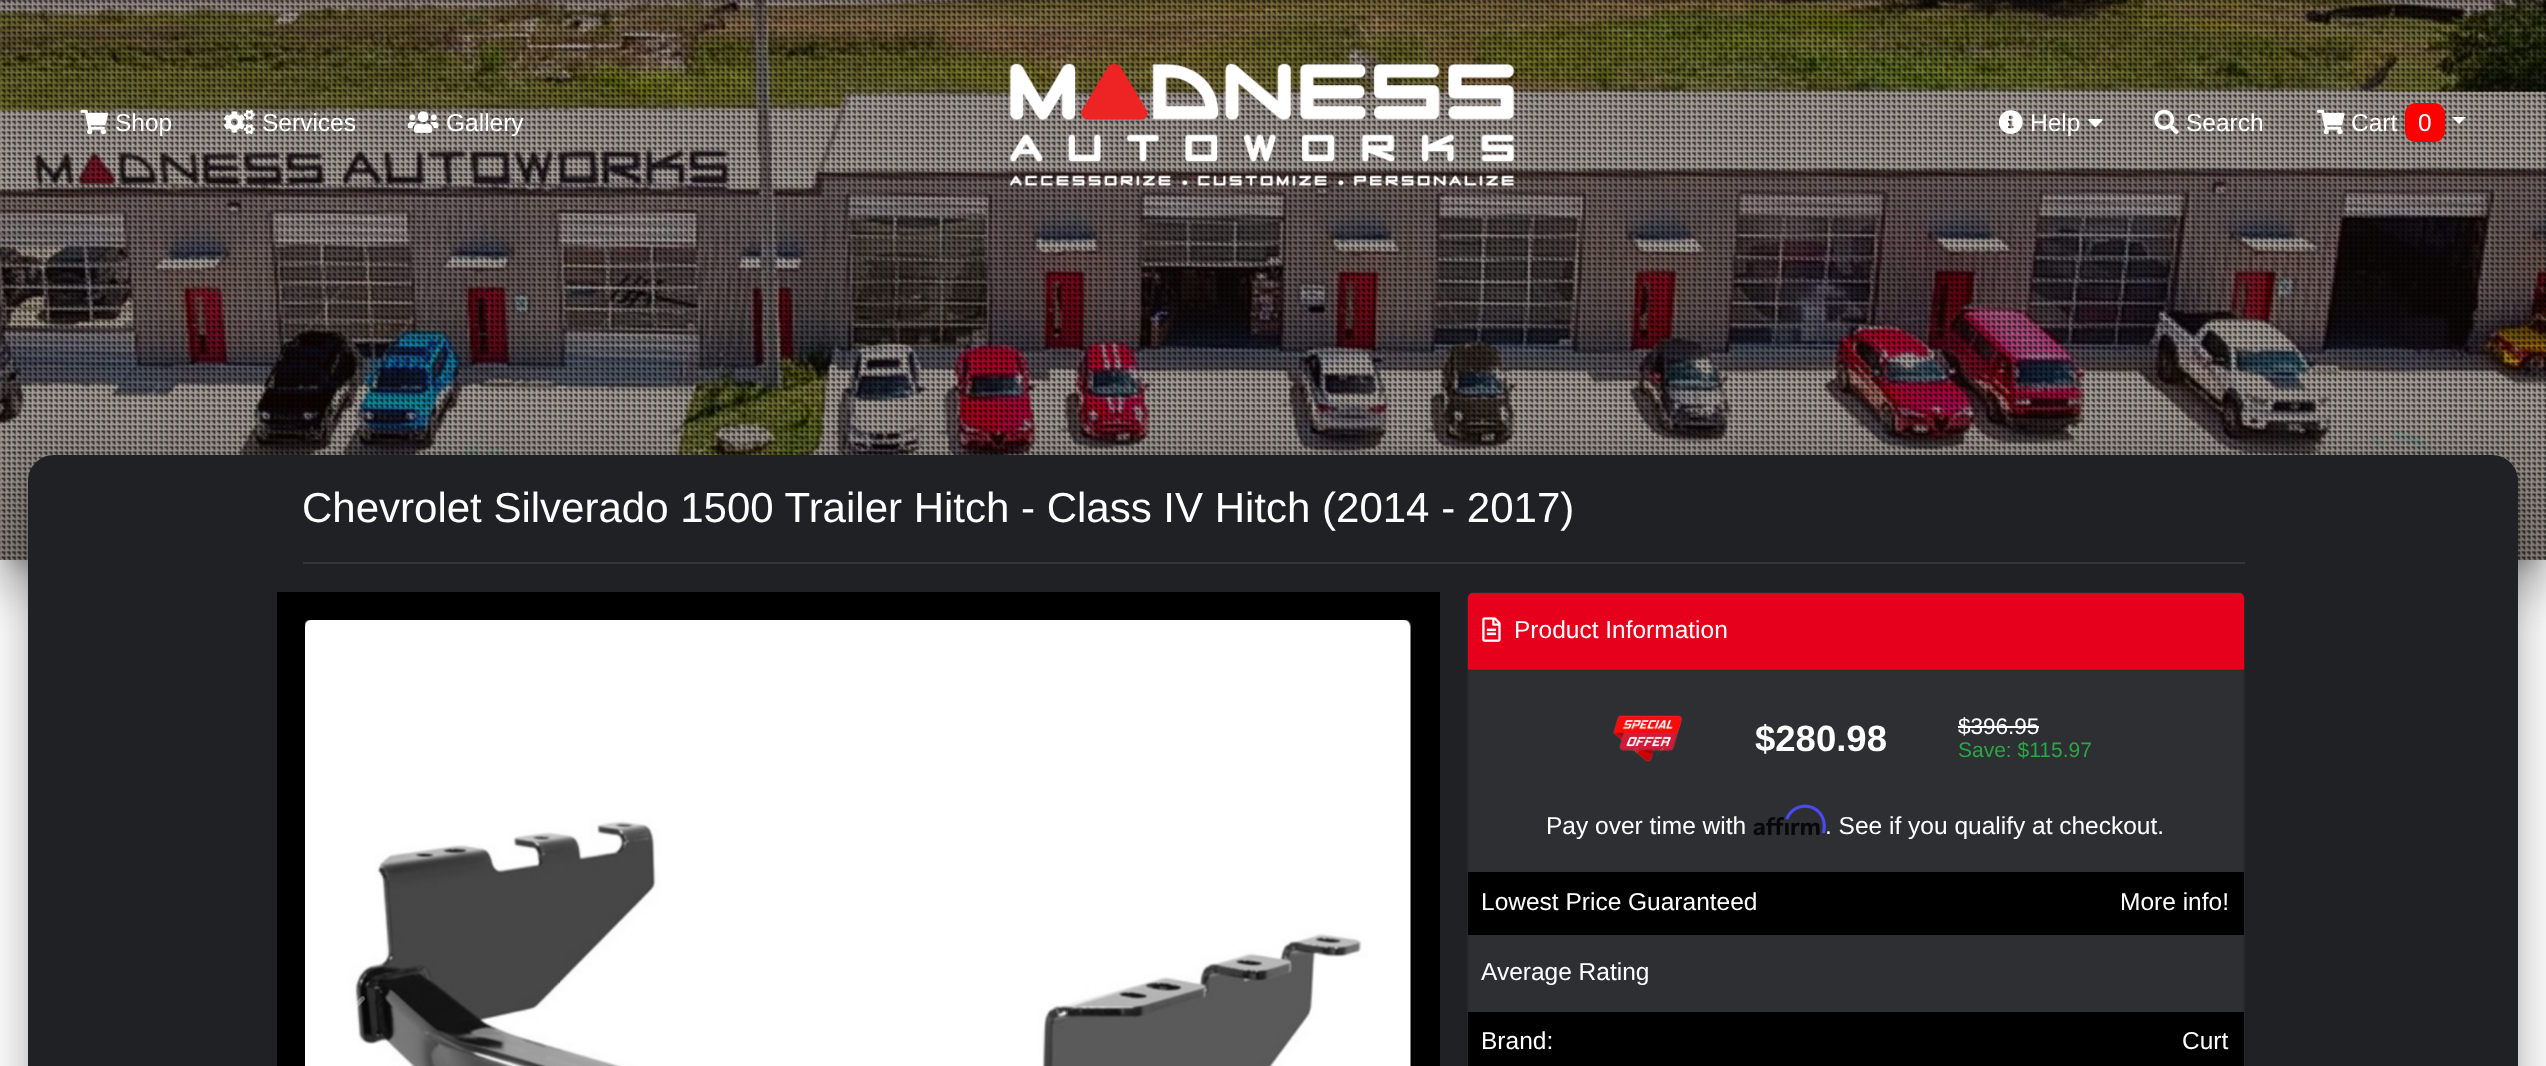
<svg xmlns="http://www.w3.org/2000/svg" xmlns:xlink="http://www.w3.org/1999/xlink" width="2546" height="1066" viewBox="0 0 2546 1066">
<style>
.cls-1{font:24.5px Liberation Sans;fill:#ffffff}
.cls-2{font:42px Liberation Sans;fill:#ffffff}
.cls-3{font:bold 36.5px Liberation Sans;fill:#ffffff}
.cls-4{font:22.5px Liberation Sans;fill:#ffffff}
.cls-5{font:21px Liberation Sans;fill:#28a745}
</style>
<rect width="100%" height="100%" fill="#ffffff"/>
<rect fill="#000000" fill-opacity="0.2" filter="blur(9px)" x="9" y="23" width="2529" height="542"/>
<rect fill="#000000" fill-opacity="0.12" filter="blur(26px)" x="-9" y="2" width="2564" height="577"/>
<rect fill="#000000" fill-opacity="0.14" filter="blur(21px)" x="-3" y="25" width="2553" height="567"/>
<image xlink:href="image0.png" x="0" y="0" width="2546" height="560"/>
<image xlink:href="image1.png" x="0" y="0" width="2546" height="560"/>
<image xlink:href="image2.png" x="80" y="109" width="28" height="26"/>
<image xlink:href="image3.png" x="224" y="109" width="31" height="26"/>
<image xlink:href="image4.png" x="407" y="111" width="32" height="22"/>
<image xlink:href="image5.png" x="1009" y="63" width="506" height="123"/>
<image xlink:href="image6.png" x="1998" y="110" width="25" height="24"/>
<image xlink:href="image7.png" x="2088" y="119" width="15" height="8"/>
<image xlink:href="image8.png" x="2154" y="109" width="25" height="26"/>
<image xlink:href="image9.png" x="2317" y="109" width="28" height="26"/>
<rect fill="#ff0000" x="2405" y="103" width="40" height="39" rx="11"/>
<path fill="#ffffff" d="M2452 117H2466L2459 124Z"/>
<rect fill="#000000" fill-opacity="0.2" filter="blur(9px)" x="37" y="478" width="2473" height="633" rx="18"/>
<rect fill="#000000" fill-opacity="0.12" filter="blur(26px)" x="19" y="457" width="2508" height="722" rx="35"/>
<rect fill="#000000" fill-opacity="0.14" filter="blur(21px)" x="25" y="480" width="2497" height="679" rx="30"/>
<path fill="#202124" d="M54 455H2492C2506.5 455 2518 466.5 2518 481V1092H28V481C28 466.5 39.5 455 54 455Z"/>
<rect fill="#353535" x="303" y="562" width="1942" height="2"/>
<rect fill="#000000" x="277" y="592" width="1163" height="474"/>
<image xlink:href="image10.png" x="305" y="620" width="1106" height="446"/>
<path fill="#ffffff" fill-opacity="0.35" d="M361 997C362 995 365 996 365 999C365 1001 335 1029 331 1033L365 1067V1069C364 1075 359 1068 355 1064L332 1042C323 1033 323 1034 332 1025Z"/>
<rect fill="#2e2f33" x="1467" y="592" width="778" height="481" rx="7"/>
<rect fill="none" stroke="#000000" stroke-opacity="0.12" stroke-width="2" x="1468" y="593" width="776" height="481" rx="6"/>
<path fill="#e6001c" d="M1473 593H2239C2242 593 2244 595 2244 598V670H1468V598C1468 595 1470 593 1473 593Z"/>
<rect fill="#000000" fill-opacity="0.12" x="1468" y="669" width="776" height="2"/>
<image xlink:href="image11.png" x="1482" y="617" width="19" height="25"/>
<image xlink:href="image12.png" x="1613" y="715" width="69" height="47"/>
<rect fill="#ffffff" x="1958" y="726" width="81" height="2"/>
<image xlink:href="image14.png" x="1753" y="817" width="67" height="19"/>
<image xlink:href="image13.png" x="1785" y="804" width="41" height="30"/>
<rect fill="#000000" x="1468" y="872" width="776" height="63"/>
<rect fill="#000000" x="1468" y="1012" width="776" height="54"/>
<text class="cls-1" x="115" y="131">Shop</text>
<text class="cls-1" x="262" y="131">Services</text>
<text class="cls-1" x="446" y="131">Gallery</text>
<text class="cls-1" x="2030" y="131">Help</text>
<text class="cls-1" x="2186" y="131">Search</text>
<text class="cls-1" x="2351" y="131">Cart</text>
<text class="cls-1" x="2418" y="131">0</text>
<text class="cls-2" x="302" y="522">Chevrolet Silverado 1500 Trailer Hitch - Class IV Hitch (2014 - 2017)</text>
<text class="cls-1" x="1514" y="638">Product Information</text>
<text class="cls-3" x="1755" y="751">$280.98</text>
<text class="cls-4" x="1958" y="734">$396.95</text>
<text class="cls-5" x="1958" y="757">Save: $115.97</text>
<text class="cls-1" x="1546" y="834">Pay over time with</text>
<text class="cls-1" x="1825" y="834">. See if you qualify at checkout.</text>
<text class="cls-1" x="1481" y="910">Lowest Price Guaranteed</text>
<text class="cls-1" x="2120" y="910">More info!</text>
<text class="cls-1" x="1481" y="980">Average Rating</text>
<text class="cls-1" x="1481" y="1049">Brand:</text>
<text class="cls-1" x="2182" y="1049">Curt</text>
</svg>
